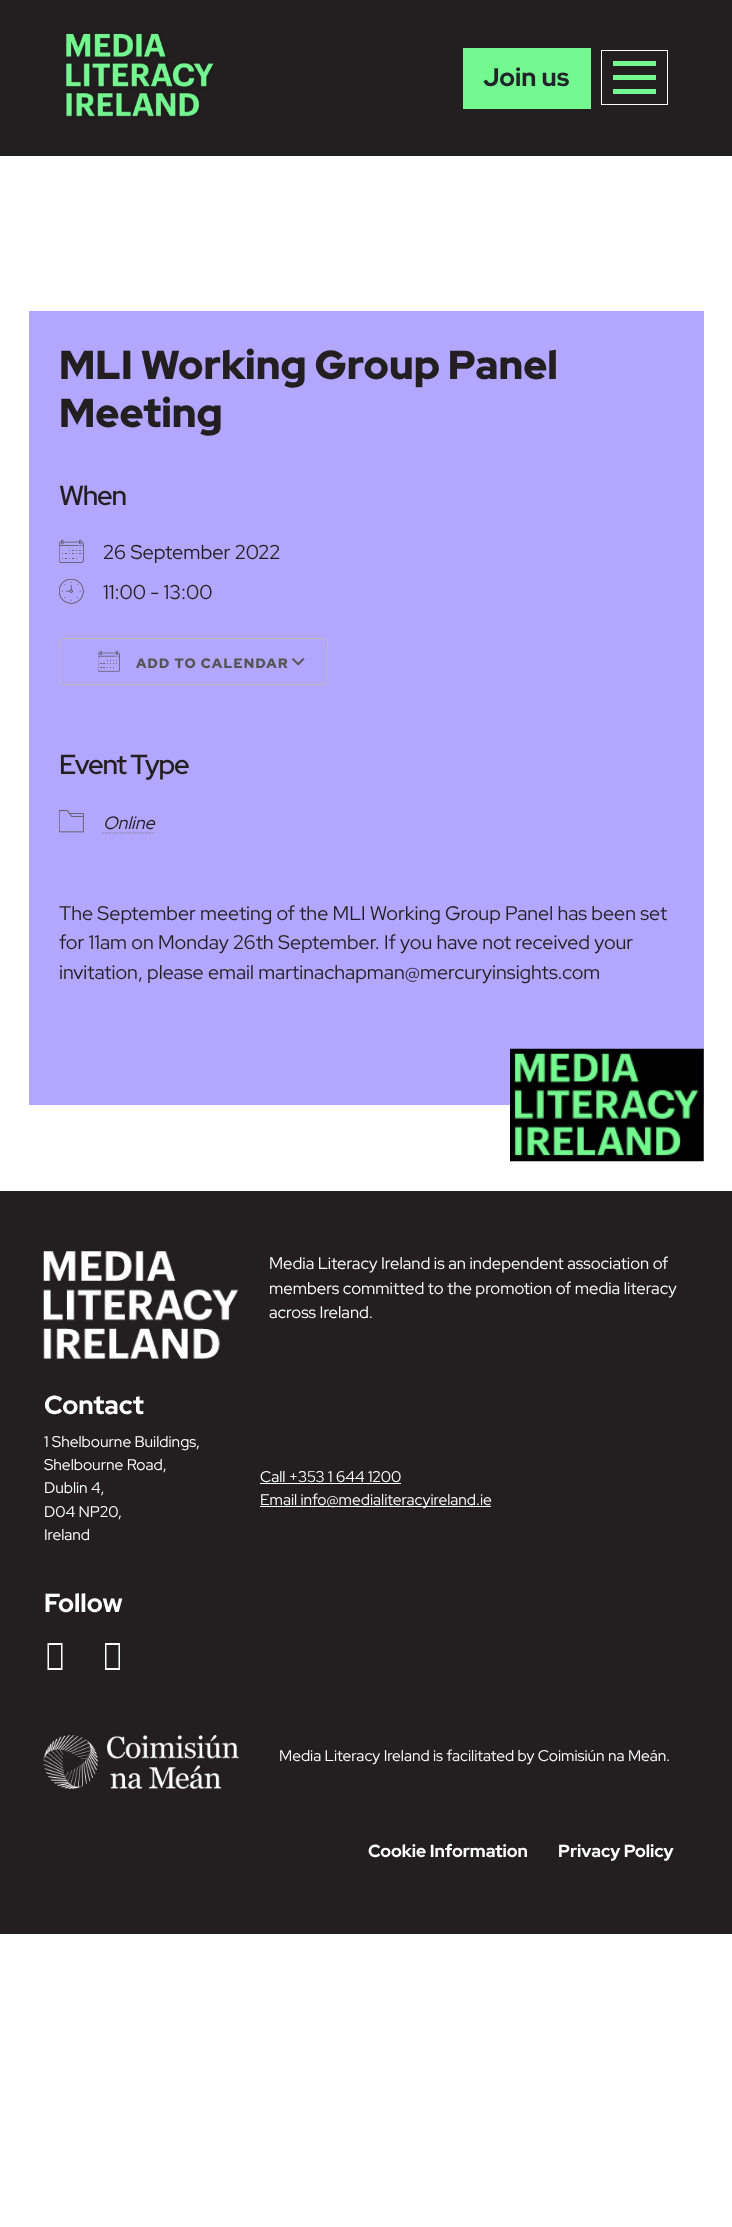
<svg xmlns="http://www.w3.org/2000/svg" xmlns:xlink="http://www.w3.org/1999/xlink" width="732" height="2227" viewBox="0 0 732 2227">
<style>
.cls-1{font:bold 25.5px Red Hat Display;fill:#212529}
.cls-2{font:900 40.5px Red Hat Display;fill:#231f20}
.cls-3{font:500 27.5px Red Hat Display;letter-spacing:-1.25px;fill:#231f20}
.cls-4{font:20px Red Hat Display;fill:#231f20}
.cls-5{font:900 13.75px Red Hat Display;letter-spacing:1.25px;fill:#545454}
.cls-6{font:italic 18px Red Hat Display;fill:#231f20}
.cls-7{font:19.7px Red Hat Display;fill:#231f20}
.cls-8{font:16.65px Red Hat Display;fill:#ffffff}
.cls-9{font:bold 26px Red Hat Display;fill:#ffffff}
.cls-10{font:15.55px Red Hat Display;fill:#ffffff}
.cls-11{font:bold 17.5px Red Hat Display;fill:#ffffff}
</style>
<rect width="100%" height="100%" fill="#ffffff"/>
<rect fill="#231f20" x="0" y="0" width="732" height="156"/>
<image xlink:href="image0.png" x="65" y="31" width="149" height="88"/>
<rect fill="#74f890" x="463" y="48" width="128" height="61"/>
<rect fill="none" stroke="#ffffff" x="601.5" y="50.5" width="66" height="54"/>
<rect fill="#74f890" x="613" y="61" width="43" height="5"/>
<rect fill="#74f890" x="613" y="75" width="43" height="5"/>
<rect fill="#74f890" x="613" y="89" width="43" height="5"/>
<rect fill="#b3a6ff" x="29" y="311" width="675" height="794"/>
<image xlink:href="image1.png" x="59" y="539" width="25" height="24"/>
<image xlink:href="image2.png" x="59" y="579" width="25" height="25"/>
<image xlink:href="image3.png" x="291" y="658" width="14" height="8"/>
<rect fill="none" stroke="#bababa" x="59.5" y="638.5" width="268" height="46" rx="4.5"/>
<image xlink:href="image4.png" x="98" y="650" width="22" height="22"/>
<image xlink:href="image5.png" x="59" y="810" width="25" height="23"/>
<path fill="none" stroke="#787878" stroke-width="1.2" stroke-dasharray="1.25 1.25" d="M102.5 833H153.5"/>
<image xlink:href="image6.png" x="510" y="1048" width="194" height="114"/>
<rect fill="#231f20" x="0" y="1191" width="732" height="743"/>
<image xlink:href="image7.png" x="43" y="1251" width="196" height="108"/>
<rect fill="#ffffff" x="260" y="1483" width="141" height="1"/>
<rect fill="#ffffff" x="260" y="1506" width="231" height="1"/>
<path fill="#ffffff" d="M47.5 1670V1643H62.5V1670ZM49 1668H61V1645H49Z"/>
<path fill="#ffffff" d="M105 1670V1643H120V1670ZM106.5 1668H118.5V1645H106.5Z"/>
<image xlink:href="image8.png" x="43" y="1735" width="196" height="54"/>
<text class="cls-1" x="483" y="86">Join us</text>
<text class="cls-2"><tspan x="59" y="379">MLI Working Group Panel</tspan><tspan x="59" y="427">Meeting</tspan></text>
<text class="cls-3" x="59" y="505">When</text>
<text class="cls-4" x="103" y="559">26 September 2022</text>
<text class="cls-4" x="103" y="599">11:00 - 13:00</text>
<text class="cls-5" x="136" y="668">ADD TO CALENDAR</text>
<text class="cls-3" x="59" y="774">Event Type</text>
<text class="cls-6" x="103" y="829">Online</text>
<text class="cls-7"><tspan x="59" y="920">The September meeting of the MLI Working Group Panel has been set</tspan><tspan x="59" y="949">for 11am on Monday 26th September. If you have not received your</tspan><tspan x="59" y="979">invitation, please email martinachapman@mercuryinsights.com</tspan></text>
<text class="cls-8"><tspan x="269" y="1269">Media Literacy Ireland is an independent association of</tspan><tspan x="269" y="1294">members committed to the promotion of media literacy</tspan><tspan x="269" y="1318">across Ireland.</tspan></text>
<text class="cls-9" x="44" y="1414">Contact</text>
<text class="cls-10"><tspan x="44" y="1447">1 Shelbourne Buildings,</tspan><tspan x="44" y="1470">Shelbourne Road,</tspan><tspan x="44" y="1493">Dublin 4,</tspan><tspan x="44" y="1517">D04 NP20,</tspan><tspan x="44" y="1540">Ireland</tspan></text>
<text class="cls-10"><tspan x="260" y="1482">Call +353 1 644 1200</tspan><tspan x="260" y="1505">Email info@medialiteracyireland.ie</tspan></text>
<text class="cls-9" x="44" y="1612">Follow</text>
<text class="cls-10" x="279" y="1761">Media Literacy Ireland is facilitated by Coimisiún na Meán.</text>
<text class="cls-11" x="368" y="1857">Cookie Information</text>
<text class="cls-11" x="558" y="1857">Privacy Policy</text>
</svg>
